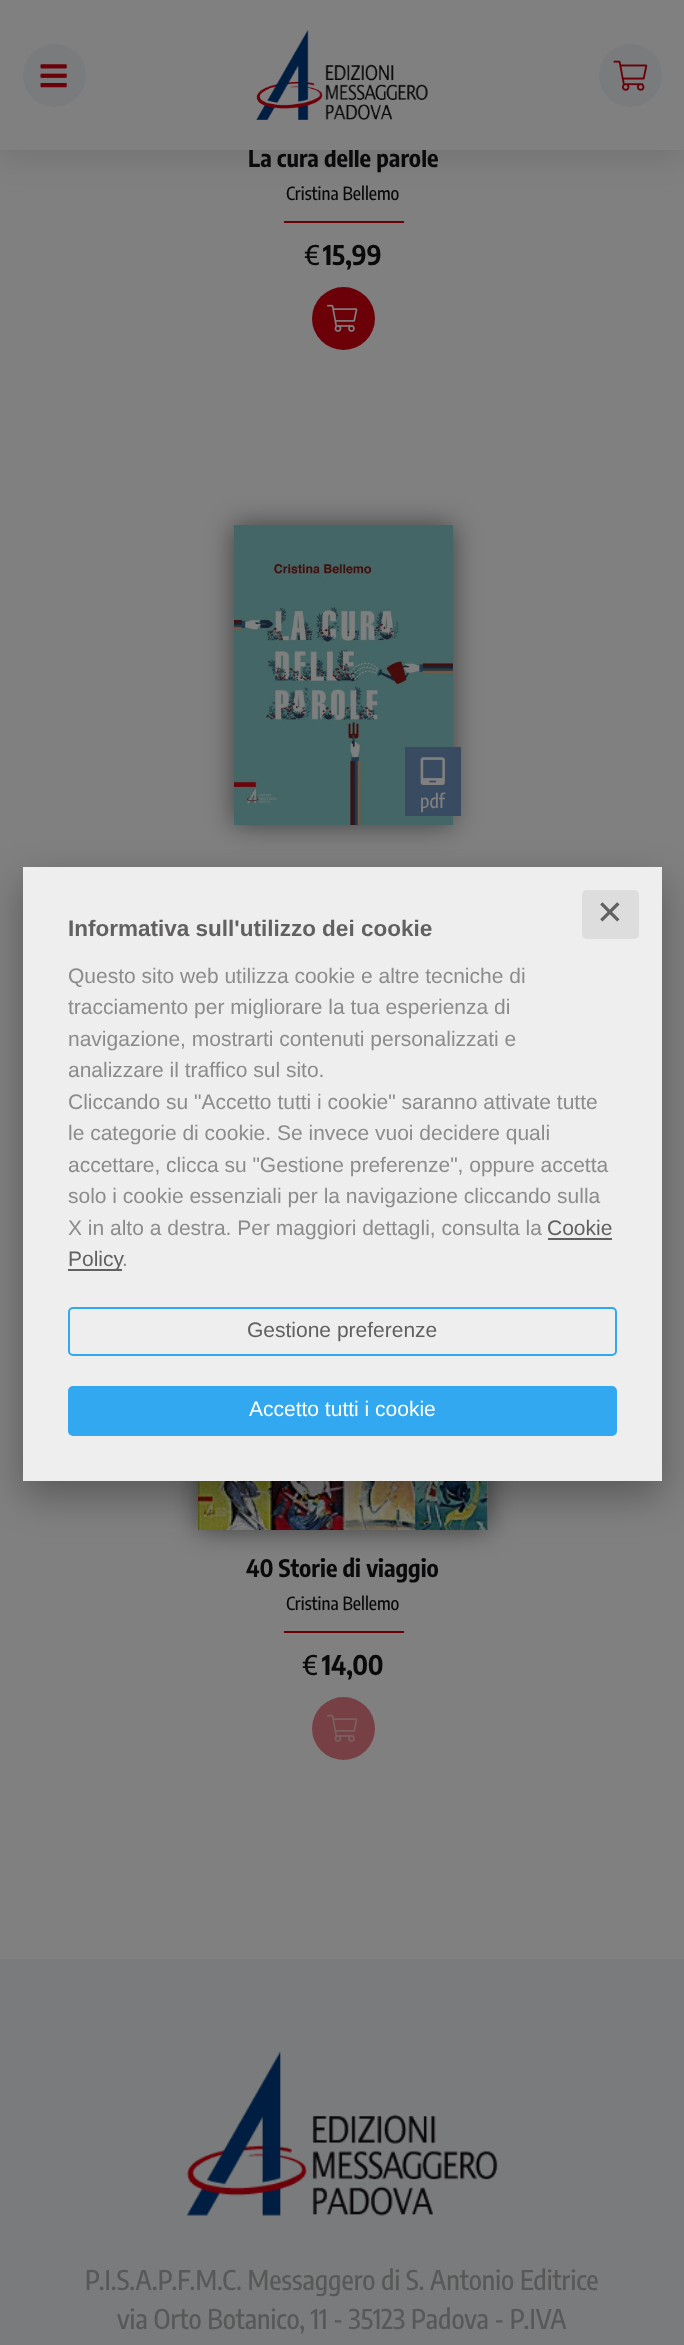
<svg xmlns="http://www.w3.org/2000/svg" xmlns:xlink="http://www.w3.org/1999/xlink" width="684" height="2345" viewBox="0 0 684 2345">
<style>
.cls-1{font:bold 24px Encode Sans Condensed;fill:#0a090b}
.cls-2{font:500 18px Encode Sans Condensed;fill:#0a090b}
.cls-3{font:500 27px Encode Sans Condensed;fill:#0a090b}
.cls-4{font:bold 27px Encode Sans Condensed;fill:#0a090b}
.cls-5{font:500 19px Encode Sans Condensed;fill:#808080}
.cls-6{font:500 27px Encode Sans Condensed;fill:#585858}
.cls-7{font:33px DejaVu Sans;fill:#626060}
.cls-8{font:bold 22.5px Liberation Sans;fill:#626060}
.cls-9{font:21px Liberation Sans;fill:#8d8b8b}
.cls-10{font:21px Liberation Sans;fill:#626060}
.cls-11{font:21px Liberation Sans;fill:#ffffff}
</style>
<rect width="100%" height="100%" fill="#808080"/>
<rect fill="#000000" fill-opacity="0.1" filter="blur(15px)" x="0" y="8" width="684" height="150"/>
<rect fill="#6c0009" x="284" y="221" width="120" height="2"/>
<circle fill="#6c0009" cx="343.5" cy="318.5" r="31.5"/>
<image xlink:href="image3.png" x="327" y="304" width="31" height="28"/>
<rect fill="#000000" fill-opacity="0.5" filter="blur(13.5px)" x="234" y="525" width="219" height="300"/>
<image xlink:href="image4.png" x="234" y="525" width="219" height="300"/>
<rect fill="#394b61" x="405" y="747" width="56" height="69"/>
<image xlink:href="image5.png" x="420" y="757" width="25" height="28"/>
<rect fill="#000000" fill-opacity="0.5" filter="blur(13.5px)" x="198" y="1230" width="290" height="300"/>
<rect fill="#7f7f7f" x="487" y="1481" width="1" height="49"/>
<image xlink:href="image6.png" x="198" y="1481" width="290" height="49"/>
<rect fill="#6c0009" x="284" y="1631" width="120" height="2"/>
<circle fill="#764045" cx="343.5" cy="1728.5" r="31.5"/>
<image xlink:href="image7.png" x="327" y="1714" width="31" height="28"/>
<rect fill="#797b7c" x="0" y="1959" width="684" height="386"/>
<image xlink:href="image8.png" x="186" y="2052" width="312" height="164"/>
<rect fill="#000000" fill-opacity="0.3" filter="blur(19px)" x="23" y="882" width="639" height="614"/>
<rect fill="#eeeeee" x="23" y="867" width="639" height="614"/>
<rect fill="#dddddd" x="582" y="890" width="57" height="49" rx="5"/>
<rect fill="#626060" x="548" y="1238" width="64" height="2"/>
<rect fill="#626060" x="68" y="1269" width="54" height="2"/>
<rect fill="none" stroke="#31a8f0" stroke-width="2" x="69" y="1308" width="547" height="47" rx="4"/>
<rect fill="#31a8f0" stroke="#31a8f0" stroke-width="2" x="69" y="1387" width="547" height="48" rx="4"/>
<text class="cls-1" x="248" y="167">La cura delle parole</text>
<rect fill="#808080" x="0" y="0" width="684" height="150"/>
<circle fill="#797b7c" cx="630.5" cy="75.5" r="31.5"/>
<image xlink:href="image2.png" x="613" y="60" width="35" height="31"/>
<image xlink:href="image1.png" x="256" y="30" width="172" height="90"/>
<circle fill="#797b7c" cx="54.5" cy="75.5" r="31.5"/>
<image xlink:href="image0.png" x="40" y="64" width="27" height="24"/>
<text class="cls-2" x="286" y="200">Cristina Bellemo</text>
<text class="cls-3" x="304" y="265">€</text>
<text class="cls-4" x="323" y="265">15,99</text>
<text class="cls-5" x="420" y="808">pdf</text>
<text class="cls-1" x="246" y="1577">40 Storie di viaggio</text>
<text class="cls-2" x="286" y="1610">Cristina Bellemo</text>
<text class="cls-3" x="302" y="1675">€</text>
<text class="cls-4" x="322" y="1675">14,00</text>
<text class="cls-6" x="85" y="2290">P.I.S.A.P.F.M.C. Messaggero di S. Antonio Editrice</text>
<text class="cls-6" x="117" y="2329">via Orto Botanico, 11 - 35123 Padova - P.IVA</text>
<text class="cls-7" x="596" y="924">✕</text>
<text class="cls-8" x="68" y="936">Informativa sull'utilizzo dei cookie</text>
<text class="cls-9"><tspan x="68" y="983">Questo sito web utilizza cookie e altre tecniche di</tspan><tspan x="68" y="1014">tracciamento per migliorare la tua esperienza di</tspan><tspan x="68" y="1046">navigazione, mostrarti contenuti personalizzati e</tspan><tspan x="68" y="1077">analizzare il traffico sul sito.</tspan><tspan x="68" y="1109">Cliccando su "Accetto tutti i cookie" saranno attivate tutte</tspan><tspan x="68" y="1140">le categorie di cookie. Se invece vuoi decidere quali</tspan><tspan x="68" y="1172">accettare, clicca su "Gestione preferenze", oppure accetta</tspan><tspan x="68" y="1203">solo i cookie essenziali per la navigazione cliccando sulla</tspan><tspan x="68" y="1235">X in alto a destra. Per maggiori dettagli, consulta la</tspan></text>
<text class="cls-10" x="547" y="1235">Cookie</text>
<text class="cls-10" x="68" y="1266">Policy</text>
<text class="cls-9" x="122" y="1266">.</text>
<text class="cls-10" x="247" y="1337">Gestione preferenze</text>
<text class="cls-11" x="249" y="1416">Accetto tutti i cookie</text>
</svg>
